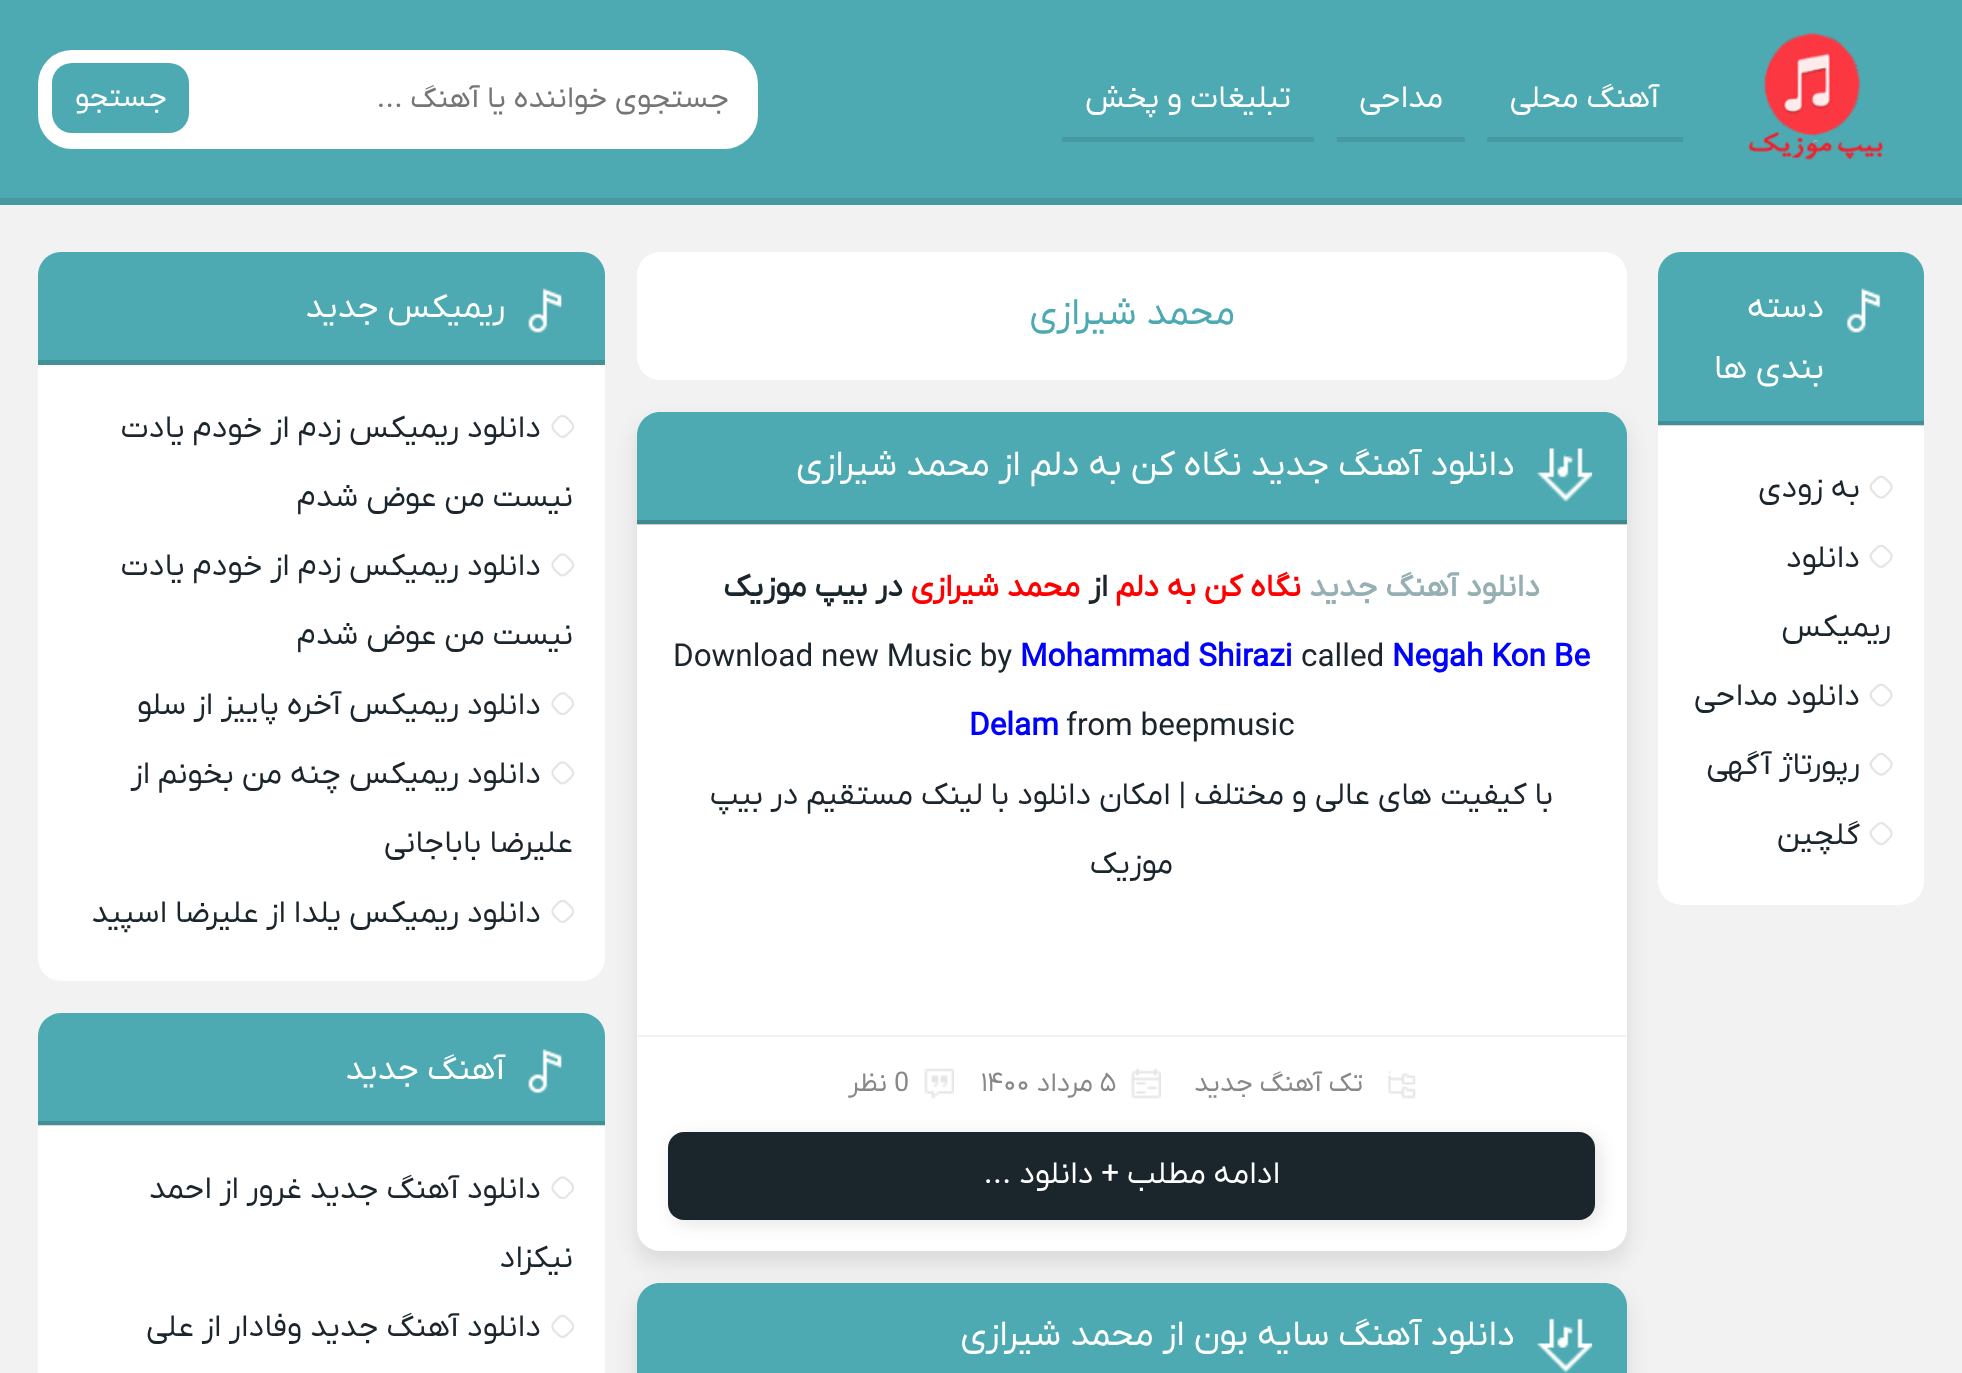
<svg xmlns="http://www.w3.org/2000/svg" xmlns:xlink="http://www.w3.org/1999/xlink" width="1962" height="1373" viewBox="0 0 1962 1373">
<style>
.cls-1{font:31.5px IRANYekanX;direction:rtl;fill:#ffffff}
.cls-2{font:30px IRANYekanX;direction:rtl;fill:#757575}
.cls-3{font:30px IRANYekanX;direction:rtl;fill:#ffffff}
.cls-4{font:33.75px IRANYekanX;direction:rtl;fill:#ffffff}
.cls-5{font:31.5px IRANYekanX;direction:rtl;fill:#1b262c}
.cls-6{font:38.25px IRANYekanX;direction:rtl;fill:#4eaab2}
.cls-7{font:36px IRANYekanX;direction:rtl;fill:#ffffff}
.cls-8{font:bold 31.5px IRANYekanX;direction:rtl;fill:#95afb2}
.cls-9{font:bold 31.5px IRANYekanX;direction:rtl;fill:#ff0000}
.cls-10{font:bold 31.5px IRANYekanX;direction:rtl;fill:#1b262c}
.cls-11{font:bold 31.5px IRANYekanX;fill:#0000ff}
.cls-12{font:31.5px IRANYekanX;fill:#1b262c}
.cls-13{font:27px IRANYekanX;direction:rtl;fill:#888888}
.cls-14{font:27px IRANYekanX;fill:#888888}
</style>
<defs>
<clipPath id="clip1"><rect x="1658" y="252" width="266" height="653" rx="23"/></clipPath>
</defs>
<rect width="100%" height="100%" fill="#f2f2f2"/>
<rect fill="#4eaab2" x="0" y="0" width="1962" height="198"/>
<rect fill="#4699a0" x="0" y="198" width="1962" height="7"/>
<image xlink:href="image0.png" x="1748" y="32" width="136" height="128"/>
<rect fill="#4699a0" x="1487" y="137" width="196" height="5"/>
<rect fill="#4699a0" x="1337" y="137" width="128" height="5"/>
<rect fill="#4699a0" x="1062" y="137" width="252" height="5"/>
<rect fill="#ffffff" x="38" y="50" width="720" height="99" rx="34"/>
<rect fill="#4eaab2" x="52" y="63" width="137" height="70" rx="20"/>
<rect fill="#ffffff" x="637" y="252" width="990" height="128" rx="23"/>
<rect fill="#000000" fill-opacity="0.1" filter="blur(11px)" x="637" y="423" width="990" height="839" rx="23"/>
<rect fill="#ffffff" x="637" y="412" width="990" height="839" rx="23"/>
<path fill="#4eaab2" d="M660 412H1604C1616.5 412 1627 422.5 1627 435V524H637V435C637 422.5 647.5 412 660 412Z"/>
<rect fill="#000000" fill-opacity="0.2" x="637" y="520" width="990" height="5"/>
<g clip-path="url(#clip1)">
<rect fill="#000000" fill-opacity="0.1" filter="blur(11px)" x="1658" y="263" width="266" height="653"/>
</g>
<rect fill="#ffffff" x="1658" y="252" width="266" height="653" rx="23"/>
<path fill="#4eaab2" d="M1681 252H1901C1913.5 252 1924 262.5 1924 275V425H1658V275C1658 262.5 1668.5 252 1681 252Z"/>
<rect fill="#000000" fill-opacity="0.15" x="1658" y="421" width="266" height="5"/>
<image xlink:href="image1.png" x="1846" y="288" width="35" height="45"/>
<path fill="none" stroke="#e5e5e5" stroke-width="2.3" d="M1885 478.5L1890 483C1892 485.5 1892 489 1890 491L1885 496C1883 498 1879.5 498 1877 496L1872.5 491C1870 489 1870 485.5 1872.5 483L1877 478.5C1879.5 476 1883 476 1885 478.5Z"/>
<path fill="none" stroke="#e5e5e5" stroke-width="2.3" d="M1885 547.5L1890 552.5C1892 554.5 1892 558 1890 560.5L1885 565C1883 567.5 1879.5 567.5 1877 565L1872.5 560.5C1870 558 1870 554.5 1872.5 552.5L1877 547.5C1879.5 545.5 1883 545.5 1885 547.5Z"/>
<path fill="none" stroke="#e5e5e5" stroke-width="2.3" d="M1885 686.5L1890 691C1892 693 1892 697 1890 699L1885 704C1883 706 1879.5 706 1877 704L1872.5 699C1870 697 1870 693 1872.5 691L1877 686.5C1879.5 684 1883 684 1885 686.5Z"/>
<path fill="none" stroke="#e5e5e5" stroke-width="2.3" d="M1885 755.5L1890 760.5C1892 762.5 1892 766 1890 768.5L1885 773C1883 775 1879.5 775 1877 773L1872.5 768.5C1870 766 1870 762.5 1872.5 760.5L1877 755.5C1879.5 753.5 1883 753.5 1885 755.5Z"/>
<path fill="none" stroke="#e5e5e5" stroke-width="2.3" d="M1885 825L1890 829.5C1892 832 1892 835.5 1890 837.5L1885 842.5C1883 844.5 1879.5 844.5 1877 842.5L1872.5 837.5C1870 835.5 1870 832 1872.5 829.5L1877 825C1879.5 822.5 1883 822.5 1885 825Z"/>
<image xlink:href="image2.png" x="1537" y="448" width="56" height="54"/>
<rect fill="#f2f2f2" x="637" y="1035" width="990" height="2"/>
<image xlink:href="image3.png" x="1388" y="1071" width="28" height="28"/>
<image xlink:href="image4.png" x="1131" y="1068" width="30" height="31"/>
<image xlink:href="image5.png" x="924" y="1068" width="30" height="31"/>
<rect fill="#000000" fill-opacity="0.1" filter="blur(9px)" x="673" y="1136" width="927" height="88" rx="16"/>
<rect fill="#1b262c" x="668" y="1132" width="927" height="88" rx="16"/>
<rect fill="#000000" fill-opacity="0.1" filter="blur(11px)" x="637" y="1294" width="990" height="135" rx="23"/>
<path fill="#4eaab2" d="M660 1283H1604C1616.5 1283 1627 1293.5 1627 1306V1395H637V1306C637 1293.5 647.5 1283 660 1283Z"/>
<image xlink:href="image6.png" x="1537" y="1318" width="56" height="55"/>
<rect fill="#ffffff" x="38" y="252" width="567" height="729" rx="23"/>
<path fill="#4eaab2" d="M61 252H582C594.5 252 605 262.5 605 275V365H38V275C38 262.5 48.5 252 61 252Z"/>
<rect fill="#429197" x="38" y="360" width="567" height="5"/>
<image xlink:href="image7.png" x="528" y="288" width="34" height="45"/>
<path fill="none" stroke="#e5e5e5" stroke-width="2.3" d="M566.5 417.5L571.5 422.5C573.5 424.5 573.5 428 571.5 430.5L566.5 435C564.5 437.5 561 437.5 558.5 435L554 430.5C552 428 552 424.5 554 422.5L558.5 417.5C561 415.5 564.5 415.5 566.5 417.5Z"/>
<path fill="none" stroke="#e5e5e5" stroke-width="2.3" d="M566.5 556L571.5 561C573.5 563 573.5 566.5 571.5 569L566.5 573.5C564.5 576 561 576 558.5 573.5L554 569C552 566.5 552 563 554 561L558.5 556C561 554 564.5 554 566.5 556Z"/>
<path fill="none" stroke="#e5e5e5" stroke-width="2.3" d="M566.5 695L571.5 699.5C573.5 702 573.5 705.5 571.5 707.5L566.5 712.5C564.5 714.5 561 714.5 558.5 712.5L554 707.5C552 705.5 552 702 554 699.5L558.5 695C561 692.5 564.5 692.5 566.5 695Z"/>
<path fill="none" stroke="#e5e5e5" stroke-width="2.3" d="M566.5 764L571.5 769C573.5 771 573.5 774.5 571.5 777L566.5 781.5C564.5 784 561 784 558.5 781.5L554 777C552 774.5 552 771 554 769L558.5 764C561 762 564.5 762 566.5 764Z"/>
<path fill="none" stroke="#e5e5e5" stroke-width="2.3" d="M566.5 902.5L571.5 907.5C573.5 909.5 573.5 913 571.5 915.5L566.5 920C564.5 922.5 561 922.5 558.5 920L554 915.5C552 913 552 909.5 554 907.5L558.5 902.5C561 900.5 564.5 900.5 566.5 902.5Z"/>
<rect fill="#ffffff" x="38" y="1013" width="567" height="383" rx="23"/>
<path fill="#4eaab2" d="M61 1013H582C594.5 1013 605 1023.5 605 1036V1125H38V1036C38 1023.5 48.5 1013 61 1013Z"/>
<rect fill="#000000" fill-opacity="0.15" x="38" y="1121" width="567" height="5"/>
<image xlink:href="image8.png" x="528" y="1049" width="34" height="45"/>
<path fill="none" stroke="#e5e5e5" stroke-width="2.3" d="M566.5 1179L571.5 1183.5C573.5 1186 573.5 1189.5 571.5 1191.5L566.5 1196.5C564.5 1198.5 561 1198.5 558.5 1196.5L554 1191.5C552 1189.5 552 1186 554 1183.5L558.5 1179C561 1177 564.5 1177 566.5 1179Z"/>
<path fill="none" stroke="#e5e5e5" stroke-width="2.3" d="M566.5 1317.5L571.5 1322.5C573.5 1324.5 573.5 1328 571.5 1330.5L566.5 1335C564.5 1337.5 561 1337.5 558.5 1335L554 1330.5C552 1328 552 1324.5 554 1322.5L558.5 1317.5C561 1315.5 564.5 1315.5 566.5 1317.5Z"/>
<text class="cls-1" x="1659" y="107">آهنگ محلی</text>
<text class="cls-1" x="1443" y="107">مداحی</text>
<text class="cls-1" x="1291" y="107">تبلیغات و پخش</text>
<text class="cls-2" x="729" y="107">جستجوی خواننده یا آهنگ ...</text>
<text class="cls-3" x="167" y="106">جستجو</text>
<text class="cls-4"><tspan x="1824" y="317">دسته</tspan><tspan x="1824" y="378">بندی ها</tspan></text>
<text class="cls-5" x="1860" y="497">به زودی</text>
<text class="cls-5" x="1860" y="567">دانلود</text>
<text class="cls-5" x="1891" y="636">ریمیکس</text>
<text class="cls-5" x="1860" y="705">دانلود مداحی</text>
<text class="cls-5" x="1860" y="774">رپورتاژ آگهی</text>
<text class="cls-5" x="1860" y="844">گلچین</text>
<text class="cls-6" x="1235" y="324">محمد شیرازی</text>
<text class="cls-7" x="1515" y="475">دانلود آهنگ جدید نگاه کن به دلم از محمد شیرازی</text>
<text class="cls-8" x="1540" y="596">دانلود آهنگ جدید</text>
<text class="cls-9" x="1301" y="596">نگاه کن به دلم</text>
<text class="cls-10" x="1108" y="596">از</text>
<text class="cls-9" x="1080" y="596">محمد شیرازی</text>
<text class="cls-10" x="903" y="596">در بیپ موزیک</text>
<text class="cls-11" x="1392" y="666">Negah Kon Be</text>
<text class="cls-12" x="1301" y="666">called</text>
<text class="cls-11" x="1020" y="666">Mohammad Shirazi</text>
<text class="cls-12" x="673" y="666">Download new Music by</text>
<text class="cls-12" x="1066" y="735">from beepmusic</text>
<text class="cls-11" x="969" y="735">Delam</text>
<text class="cls-5" x="1553" y="804">با کیفیت ‌های عالی و مختلف | امکان دانلود با لینک مستقیم در بیپ</text>
<text class="cls-5" x="1173" y="873">موزیک</text>
<text class="cls-13" x="1363" y="1091">تک آهنگ جدید</text>
<text class="cls-14" x="1100" y="1091">۵</text>
<text class="cls-13" x="1093" y="1091">مرداد</text>
<text class="cls-14" x="981" y="1091">۱۴۰۰</text>
<text class="cls-14" x="894" y="1091">0</text>
<text class="cls-13" x="887" y="1091">نظر</text>
<text class="cls-1" x="1280" y="1183">ادامه مطلب + دانلود ...</text>
<text class="cls-7" x="1515" y="1345">دانلود آهنگ سایه بون از محمد شیرازی</text>
<text class="cls-4" x="505" y="317">ریمیکس جدید</text>
<text class="cls-5" x="541" y="437">دانلود ریمیکس زدم از خودم یادت</text>
<text class="cls-5" x="573" y="506">نیست من عوض شدم</text>
<text class="cls-5" x="541" y="575">دانلود ریمیکس زدم از خودم یادت</text>
<text class="cls-5" x="573" y="644">نیست من عوض شدم</text>
<text class="cls-5" x="541" y="714">دانلود ریمیکس آخره پاییز از سلو</text>
<text class="cls-5" x="541" y="783">دانلود ریمیکس چنه من بخونم از</text>
<text class="cls-5" x="573" y="852">علیرضا باباجانی</text>
<text class="cls-5" x="541" y="922">دانلود ریمیکس یلدا از علیرضا اسپید</text>
<text class="cls-4" x="505" y="1079">آهنگ جدید</text>
<text class="cls-5" x="541" y="1198">دانلود آهنگ جدید غرور از احمد</text>
<text class="cls-5" x="573" y="1267">نیکزاد</text>
<text class="cls-5" x="541" y="1336">دانلود آهنگ جدید وفادار از علی</text>
</svg>
